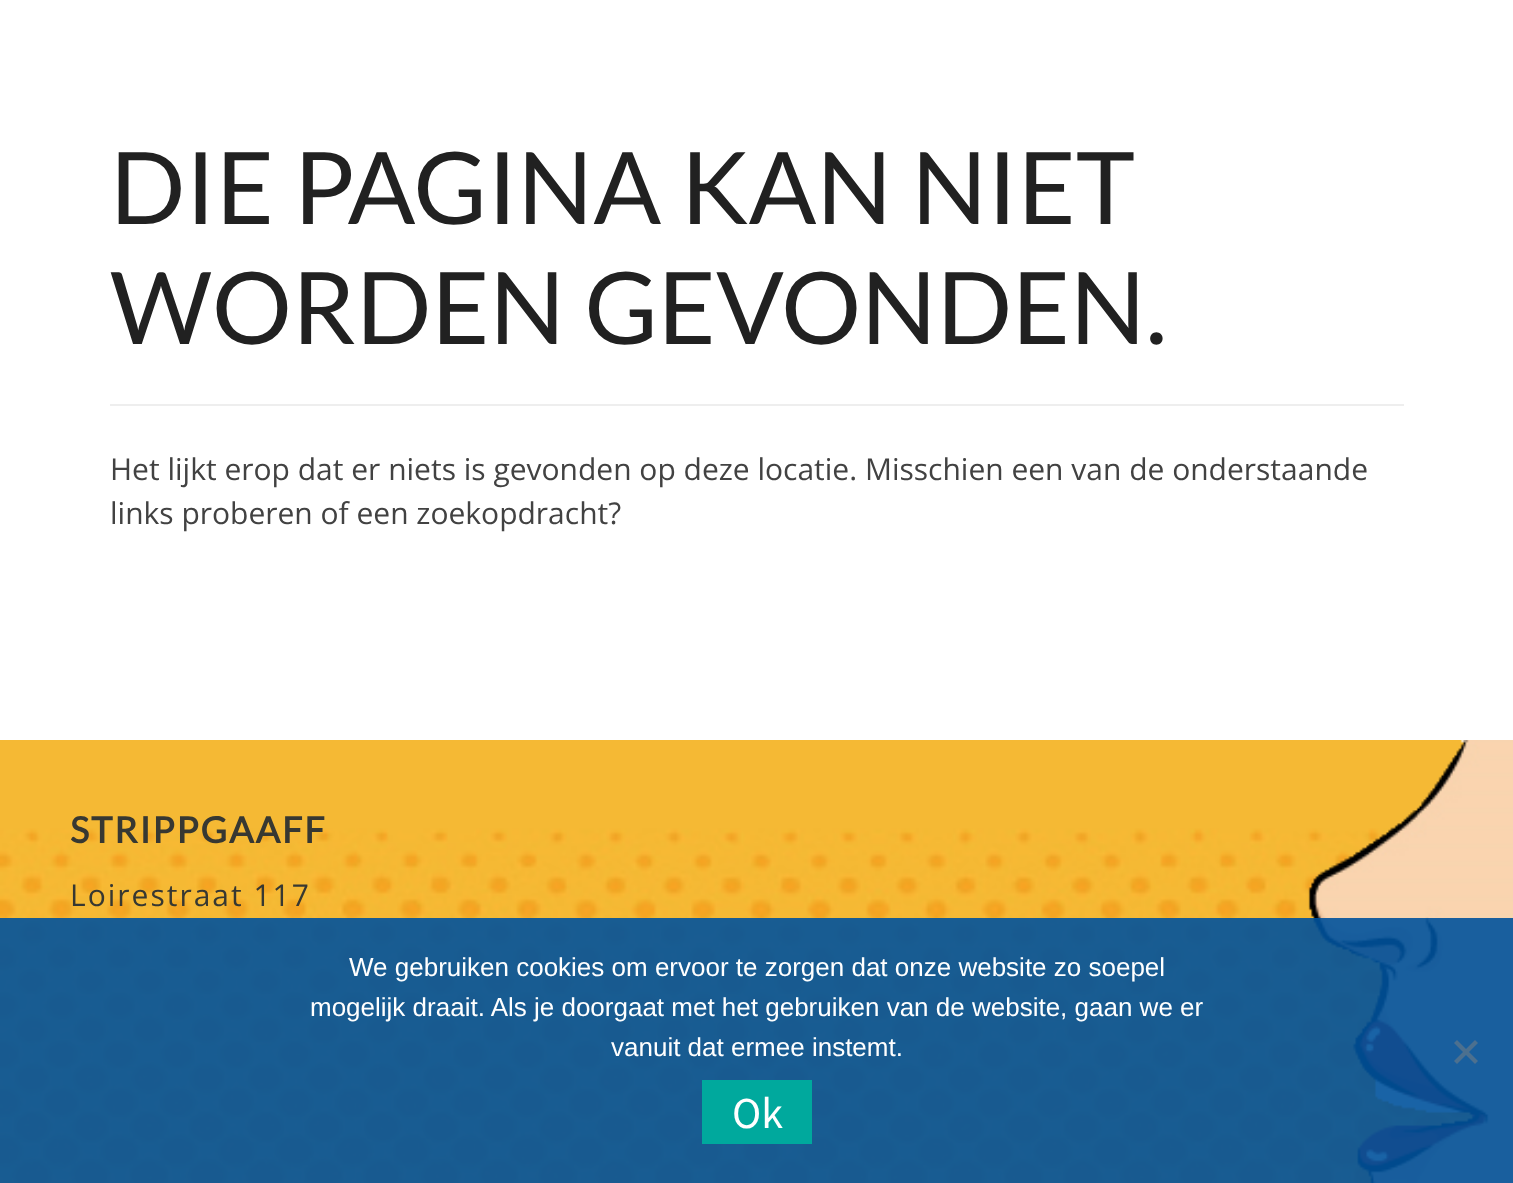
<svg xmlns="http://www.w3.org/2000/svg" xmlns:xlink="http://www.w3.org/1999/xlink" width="1513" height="1183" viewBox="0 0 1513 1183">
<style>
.cls-1{font:100px Lato;fill:#212121}
.cls-2{font:30px Open Sans;fill:#424242}
.cls-3{font:bold 36px Lato;letter-spacing:2px;fill:#373832}
.cls-4{font:30px Open Sans;letter-spacing:2px;fill:#373832}
.cls-5{font:26px Liberation Sans;fill:#ffffff}
.cls-6{font:44px Source Sans Pro;fill:#ffffff}
</style>
<rect width="100%" height="100%" fill="#ffffff"/>
<rect fill="#eeeeee" x="110" y="404" width="1294" height="2"/>
<image xlink:href="image0.png" x="0" y="740" width="1473" height="443"/>
<image xlink:href="image1.png" x="1308" y="740" width="205" height="443"/>
<rect fill="#00529c" fill-opacity="0.9" x="0" y="918" width="1513" height="265"/>
<path fill="#4c708f" d="M1475 1040L1478 1043L1457 1064L1454 1061Z"/>
<path fill="#4c708f" d="M1454 1043L1457 1040L1478 1061L1475 1064Z"/>
<rect fill="#00a99d" x="702" y="1080" width="110" height="64"/>
<text class="cls-1"><tspan x="110" y="224">DIE PAGINA KAN NIET</tspan><tspan x="110" y="344">WORDEN GEVONDEN.</tspan></text>
<text class="cls-2"><tspan x="110" y="480">Het lijkt erop dat er niets is gevonden op deze locatie. Misschien een van de onderstaande</tspan><tspan x="110" y="524">links proberen of een zoekopdracht?</tspan></text>
<text class="cls-3" x="70" y="843">STRIPPGAAFF</text>
<text class="cls-4" x="70" y="906">Loirestraat 117</text>
<text class="cls-5" x="349" y="976">We gebruiken cookies om ervoor te zorgen dat onze website zo soepel</text>
<text class="cls-5" x="310" y="1016">mogelijk draait. Als je doorgaat met het gebruiken van de website, gaan we er</text>
<text class="cls-5" x="611" y="1056">vanuit dat ermee instemt.</text>
<text class="cls-6" x="732" y="1128">Ok</text>
</svg>
